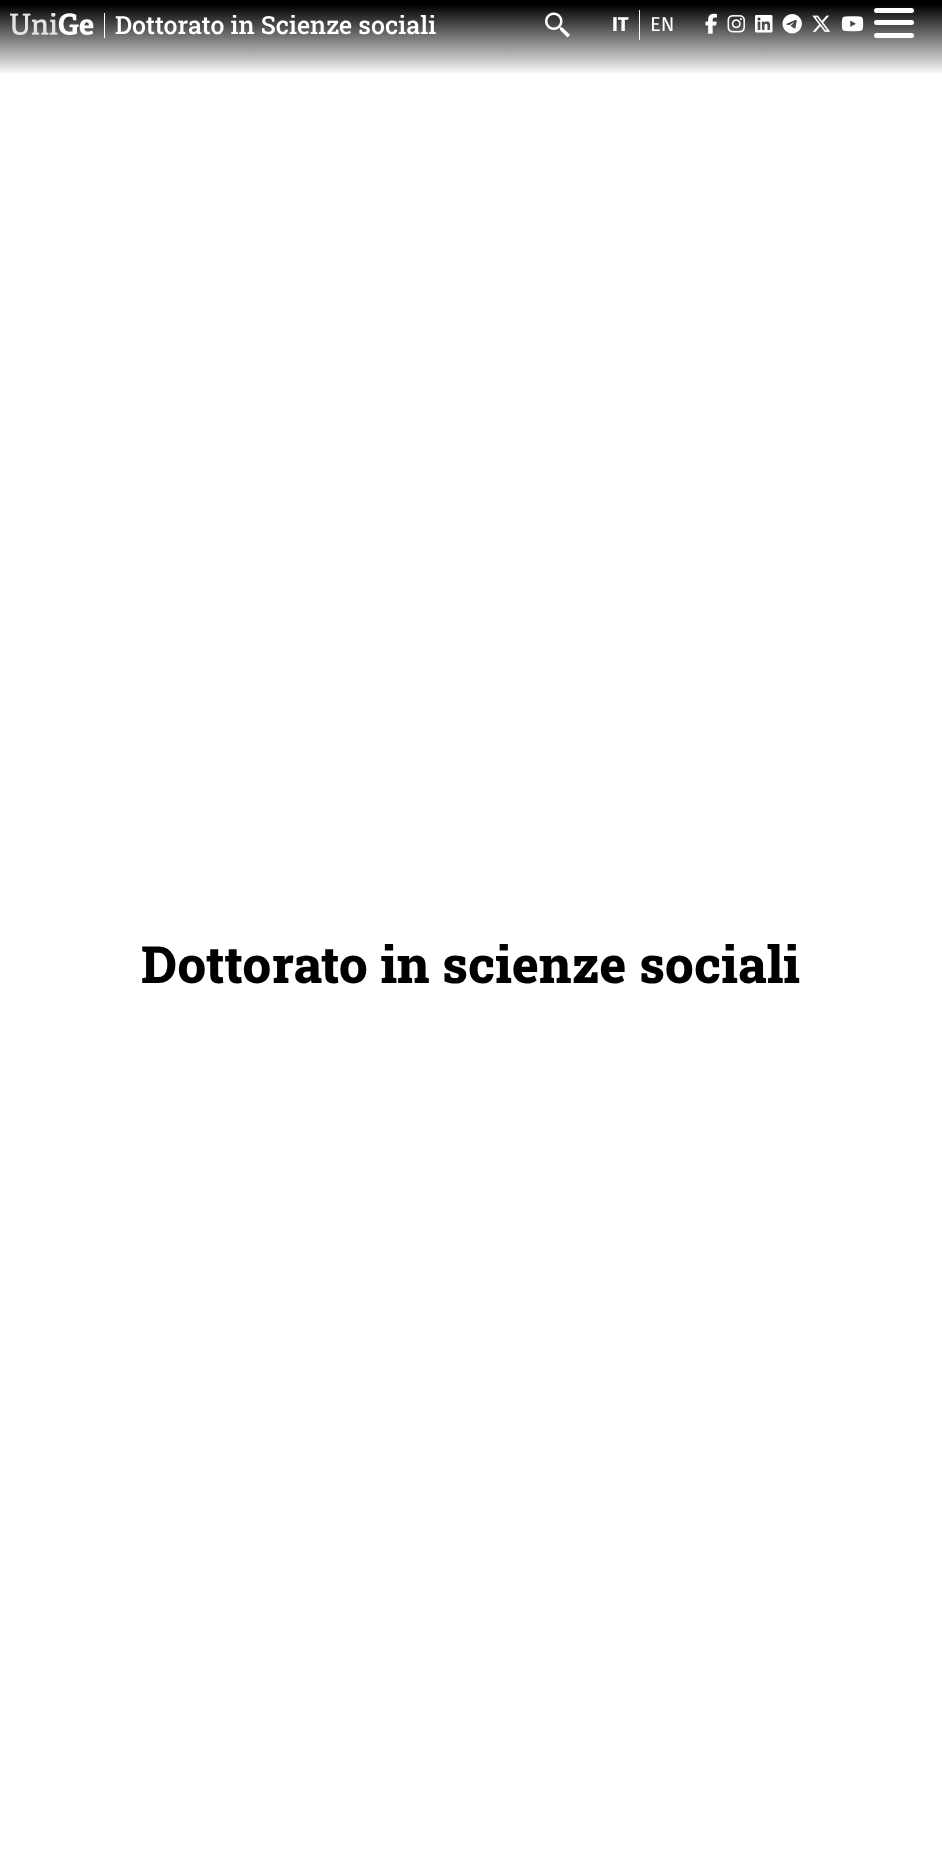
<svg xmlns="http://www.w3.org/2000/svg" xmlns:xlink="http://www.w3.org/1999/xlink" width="942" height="1862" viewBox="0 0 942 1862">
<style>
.cls-1{font:500 25px Roboto Slab;fill:#ffffff}
.cls-2{font:bold 20px Fira Sans;fill:#ffffff}
.cls-3{font:20px Fira Sans;fill:#ffffff}
.cls-4{font:800 51.25px Roboto Slab;fill:#000000}
</style>
<defs>
<linearGradient id="g1" gradientUnits="userSpaceOnUse" x1="471" y1="0" x2="471" y2="75"><stop offset="0" stop-color="#000000"/><stop offset="0.06" stop-color="#000000"/><stop offset="1" stop-color="#ffffff"/></linearGradient>
</defs>
<rect width="100%" height="100%" fill="#ffffff"/>
<rect fill="url(#g1)" x="0" y="0" width="942" height="74"/>
<image xlink:href="image0.png" x="10" y="13" width="84" height="22"/>
<rect fill="#ffffff" x="104" y="13" width="1" height="25"/>
<image xlink:href="image1.png" x="545" y="12" width="25" height="26"/>
<rect fill="#ffffff" x="639" y="10" width="1" height="30"/>
<image xlink:href="image2.png" x="705" y="13" width="12" height="21"/>
<image xlink:href="image3.png" x="727" y="15" width="18" height="18"/>
<image xlink:href="image4.png" x="755" y="15" width="18" height="18"/>
<image xlink:href="image5.png" x="782" y="14" width="20" height="20"/>
<image xlink:href="image6.png" x="812" y="15" width="19" height="17"/>
<image xlink:href="image7.png" x="841" y="16" width="23" height="16"/>
<rect fill="#ffffff" x="874" y="8" width="40" height="5" rx="2.5"/>
<rect fill="#ffffff" x="874" y="20" width="40" height="5" rx="2.5"/>
<rect fill="#ffffff" x="874" y="33" width="40" height="5" rx="2.5"/>
<text class="cls-1" x="115" y="34">Dottorato in Scienze sociali</text>
<text class="cls-2" x="612" y="31">IT</text>
<text class="cls-3" x="650" y="31">EN</text>
<text class="cls-4" x="141" y="983">Dottorato in scienze sociali</text>
</svg>
